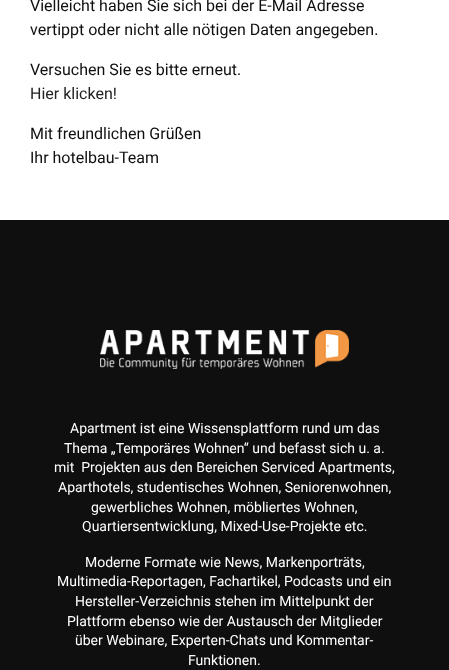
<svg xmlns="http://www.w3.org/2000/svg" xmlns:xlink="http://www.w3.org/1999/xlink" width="449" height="670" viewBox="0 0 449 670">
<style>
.cls-1{font:16px Roboto;fill:#100f0f}
.cls-2{font:16px Roboto;fill:#222222}
.cls-3{font:14px Roboto;fill:#ffffff}
</style>
<rect width="100%" height="100%" fill="#ffffff"/>
<rect fill="#100f0f" x="0" y="220" width="449" height="450"/>
<image xlink:href="image0.png" x="100" y="330" width="249" height="39"/>
<text class="cls-1"><tspan x="30" y="11">Vielleicht haben Sie sich bei der E-Mail Adresse</tspan><tspan x="30" y="35">vertippt oder nicht alle nötigen Daten angegeben.</tspan></text>
<text class="cls-1" x="30" y="75">Versuchen Sie es bitte erneut.</text>
<text class="cls-2" x="30" y="99">Hier klicken!</text>
<text class="cls-1"><tspan x="30" y="139">Mit freundlichen Grüßen</tspan><tspan x="30" y="163">Ihr hotelbau-Team</tspan></text>
<text class="cls-3" x="70" y="433">Apartment ist eine Wissensplattform rund um das</text>
<text class="cls-3" x="64" y="453">Thema „Temporäres Wohnen“ und befasst sich u. a.</text>
<text class="cls-3" xml:space="preserve" x="54" y="472">mit  Projekten aus den Bereichen Serviced Apartments,</text>
<text class="cls-3" x="58" y="492">Aparthotels, studentisches Wohnen, Seniorenwohnen,</text>
<text class="cls-3" x="91" y="512">gewerbliches Wohnen, möbliertes Wohnen,</text>
<text class="cls-3" x="82" y="531">Quartiersentwicklung, Mixed-Use-Projekte etc.</text>
<text class="cls-3" x="85" y="567">Moderne Formate wie News, Markenporträts,</text>
<text class="cls-3" x="57" y="586">Multimedia-Reportagen, Fachartikel, Podcasts und ein</text>
<text class="cls-3" x="75" y="606">Hersteller-Verzeichnis stehen im Mittelpunkt der</text>
<text class="cls-3" x="67" y="626">Plattform ebenso wie der Austausch der Mitglieder</text>
<text class="cls-3" x="75" y="645">über Webinare, Experten-Chats und Kommentar-</text>
<text class="cls-3" x="188" y="665">Funktionen.</text>
</svg>
